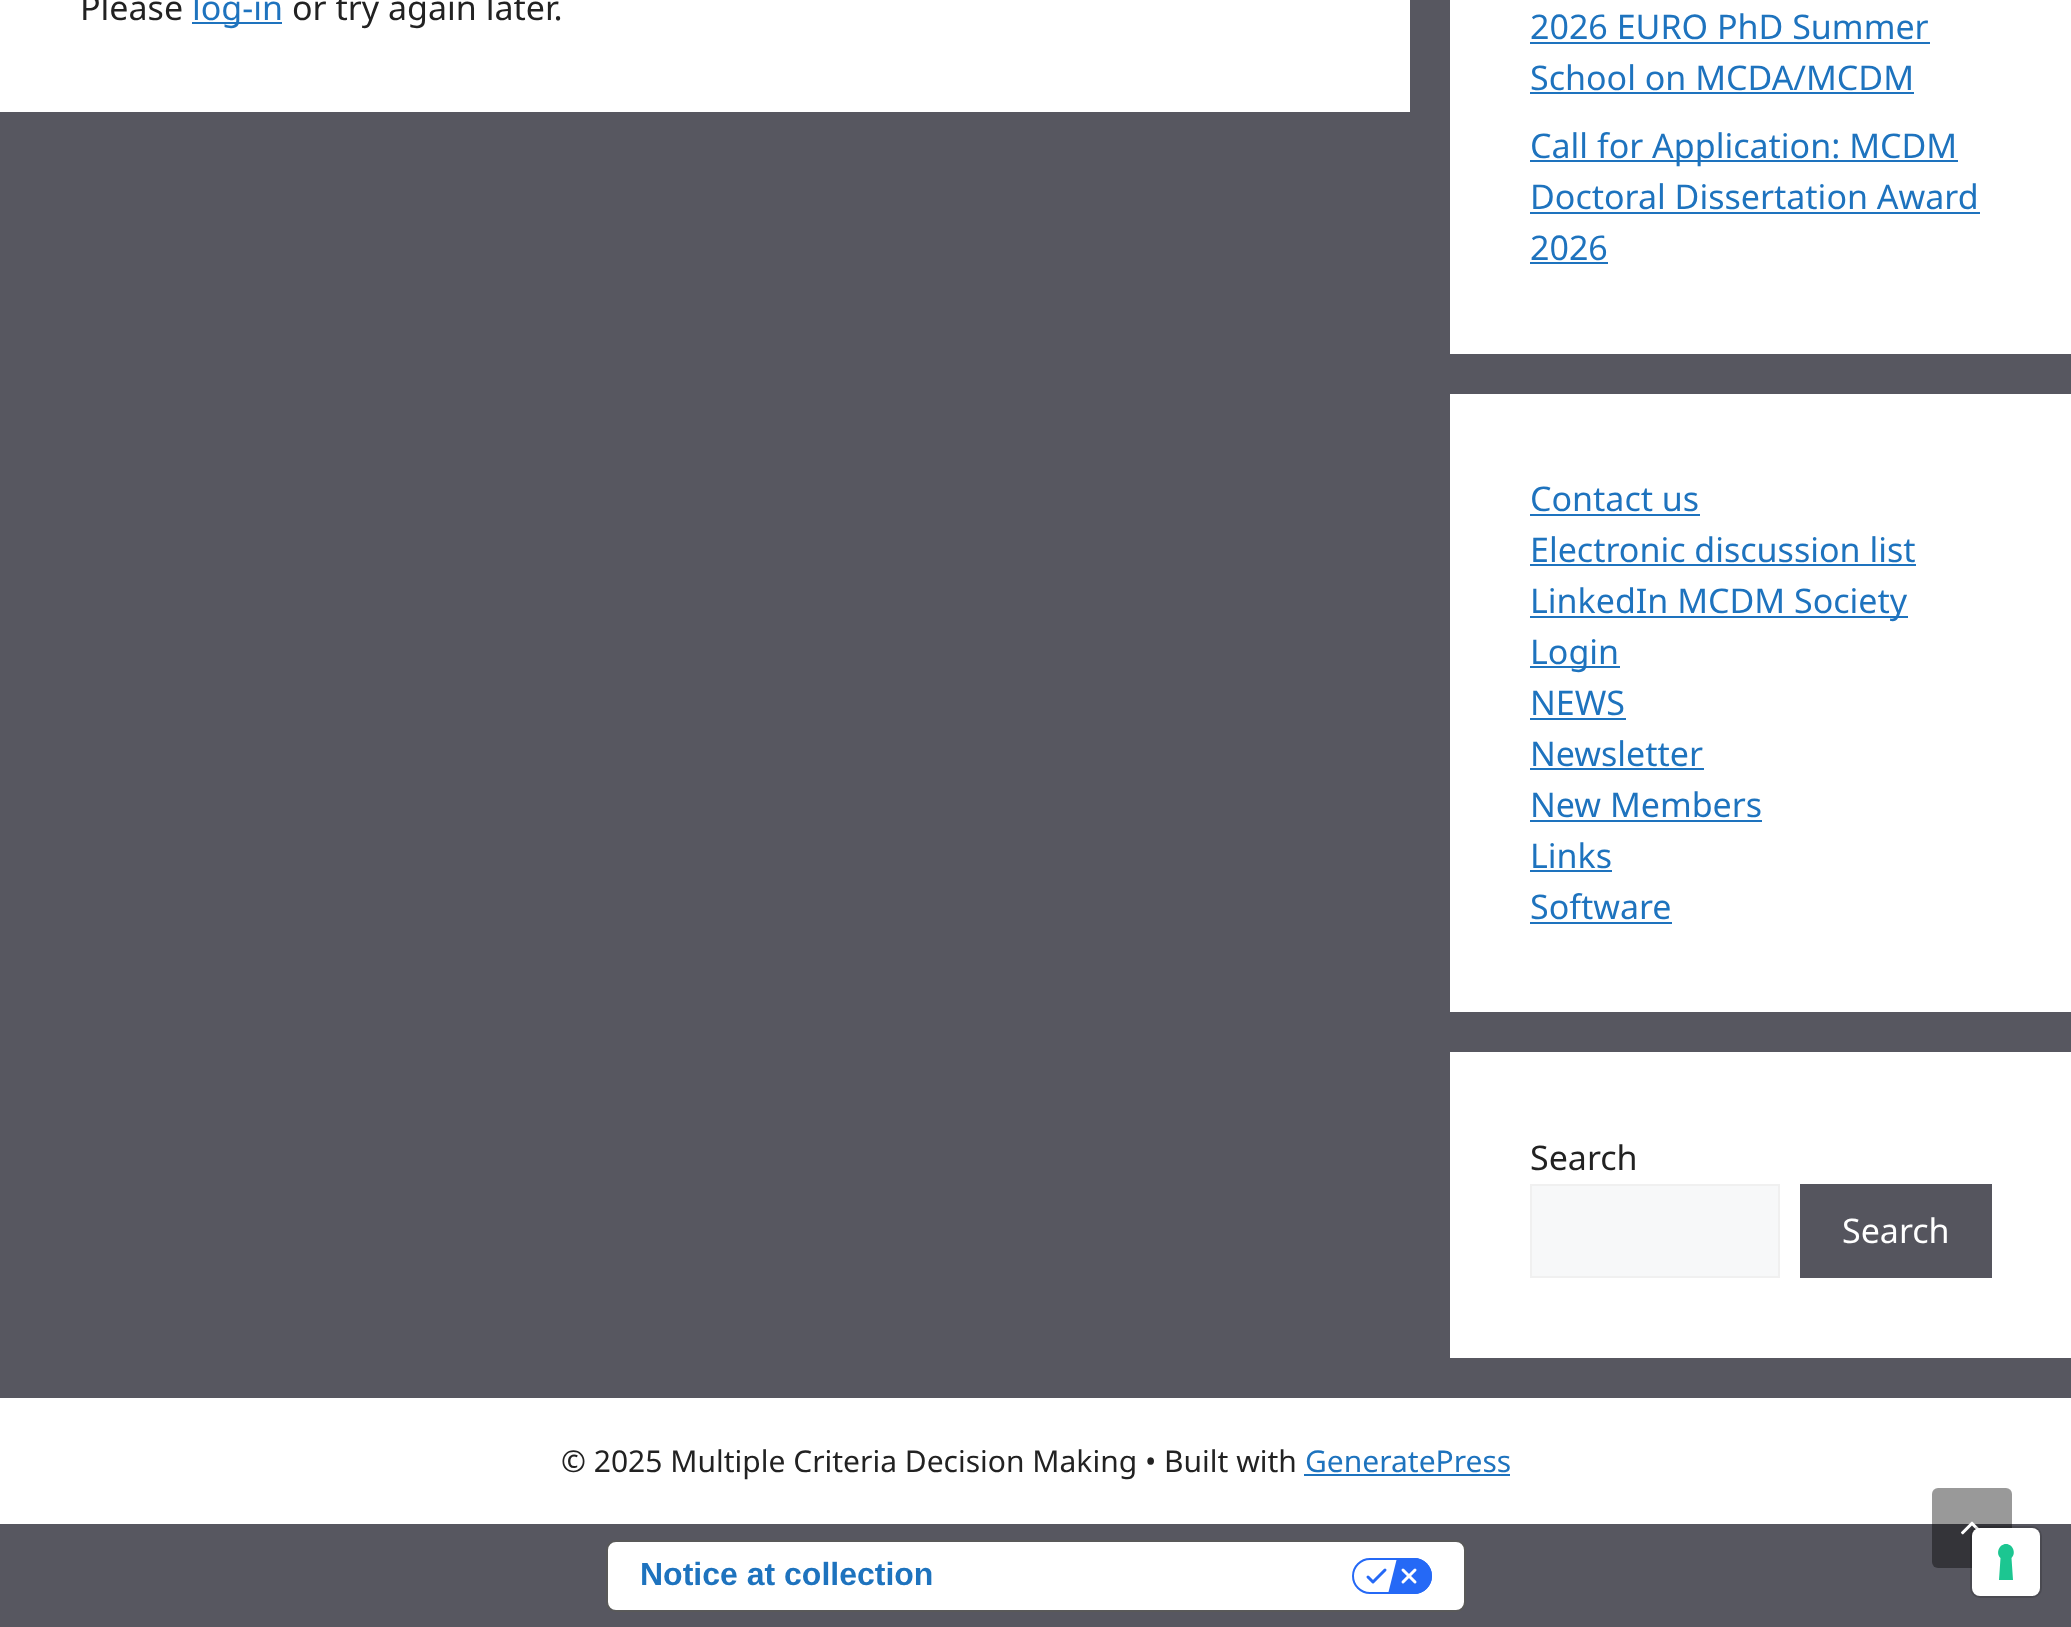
<svg xmlns="http://www.w3.org/2000/svg" xmlns:xlink="http://www.w3.org/1999/xlink" width="2071" height="1627" viewBox="0 0 2071 1627">
<style>
.cls-1{font:34px Noto Sans;fill:#222222}
.cls-2{font:34px Noto Sans;fill:#1e73be}
.cls-3{font:34px Noto Sans;fill:#ffffff}
.cls-4{font:30px Noto Sans;fill:#222222}
.cls-5{font:30px Noto Sans;fill:#1e73be}
.cls-6{font:bold 32px Liberation Sans;fill:#1e73be}
</style>
<rect width="100%" height="100%" fill="#575760"/>
<rect fill="#ffffff" x="0" y="0" width="1410" height="112"/>
<rect fill="#1e73be" x="192" y="22" width="90" height="2"/>
<rect fill="#ffffff" x="1450" y="0" width="621" height="354"/>
<rect fill="#1e73be" x="1530" y="42" width="400" height="2"/>
<rect fill="#1e73be" x="1530" y="92" width="384" height="2"/>
<rect fill="#1e73be" x="1530" y="160" width="428" height="2"/>
<rect fill="#1e73be" x="1530" y="212" width="450" height="2"/>
<rect fill="#1e73be" x="1530" y="262" width="78" height="2"/>
<rect fill="#ffffff" x="1450" y="394" width="621" height="618"/>
<rect fill="#1e73be" x="1530" y="514" width="170" height="2"/>
<rect fill="#1e73be" x="1530" y="564" width="386" height="2"/>
<rect fill="#1e73be" x="1530" y="616" width="378" height="2"/>
<rect fill="#1e73be" x="1530" y="666" width="90" height="2"/>
<rect fill="#1e73be" x="1530" y="718" width="96" height="2"/>
<rect fill="#1e73be" x="1530" y="768" width="174" height="2"/>
<rect fill="#1e73be" x="1530" y="820" width="232" height="2"/>
<rect fill="#1e73be" x="1530" y="870" width="82" height="2"/>
<rect fill="#1e73be" x="1530" y="922" width="142" height="2"/>
<rect fill="#ffffff" x="1450" y="1052" width="621" height="306"/>
<rect fill="#f7f8f9" stroke="#f0f0f0" stroke-width="2" x="1531" y="1185" width="248" height="92"/>
<rect fill="#55555e" x="1800" y="1184" width="192" height="94"/>
<rect fill="#ffffff" x="0" y="1398" width="2071" height="126"/>
<rect fill="#1e73be" x="1304" y="1474" width="206" height="2"/>
<rect fill="#000000" fill-opacity="0.4" x="1932" y="1488" width="80" height="80" rx="6"/>
<image xlink:href="image0.png" x="1961" y="1521" width="19" height="14"/>
<rect fill="#ffffff" stroke="#595959" stroke-width="2" x="607" y="1541" width="858" height="70" rx="9"/>
<image xlink:href="image1.png" x="1352" y="1558" width="80" height="36"/>
<rect fill="none" stroke="#000000" stroke-opacity="0.15" stroke-width="2" x="1971" y="1527" width="70" height="70" rx="9"/>
<rect fill="#ffffff" x="1972" y="1528" width="68" height="68" rx="8"/>
<path fill="#1cc691" fill-rule="evenodd" d="M2006 1544C2013 1544 2016.5 1553.5 2011.5 1558L2013 1580H1999L2000.5 1558C1995.5 1553.5 1999 1544 2006 1544Z"/>
<text class="cls-1" x="80" y="20">Please</text>
<text class="cls-2" x="192" y="20">log-in</text>
<text class="cls-1" x="292" y="20">or try again later.</text>
<text class="cls-2"><tspan x="1530" y="39">2026 EURO PhD Summer</tspan><tspan x="1530" y="90">School on MCDA/MCDM</tspan></text>
<text class="cls-2"><tspan x="1530" y="158">Call for Application: MCDM</tspan><tspan x="1530" y="209">Doctoral Dissertation Award</tspan><tspan x="1530" y="260">2026</tspan></text>
<text class="cls-2"><tspan x="1530" y="511">Contact us</tspan><tspan x="1530" y="562">Electronic discussion list</tspan><tspan x="1530" y="613">LinkedIn MCDM Society</tspan><tspan x="1530" y="664">Login</tspan><tspan x="1530" y="715">NEWS</tspan><tspan x="1530" y="766">Newsletter</tspan><tspan x="1530" y="817">New Members</tspan><tspan x="1530" y="868">Links</tspan><tspan x="1530" y="919">Software</tspan></text>
<text class="cls-1" x="1530" y="1170">Search</text>
<text class="cls-3" x="1842" y="1243">Search</text>
<text class="cls-4" x="561" y="1472">© 2025 Multiple Criteria Decision Making • Built with</text>
<text class="cls-5" x="1305" y="1472">GeneratePress</text>
<text class="cls-6" x="640" y="1585">Notice at collection</text>
</svg>
